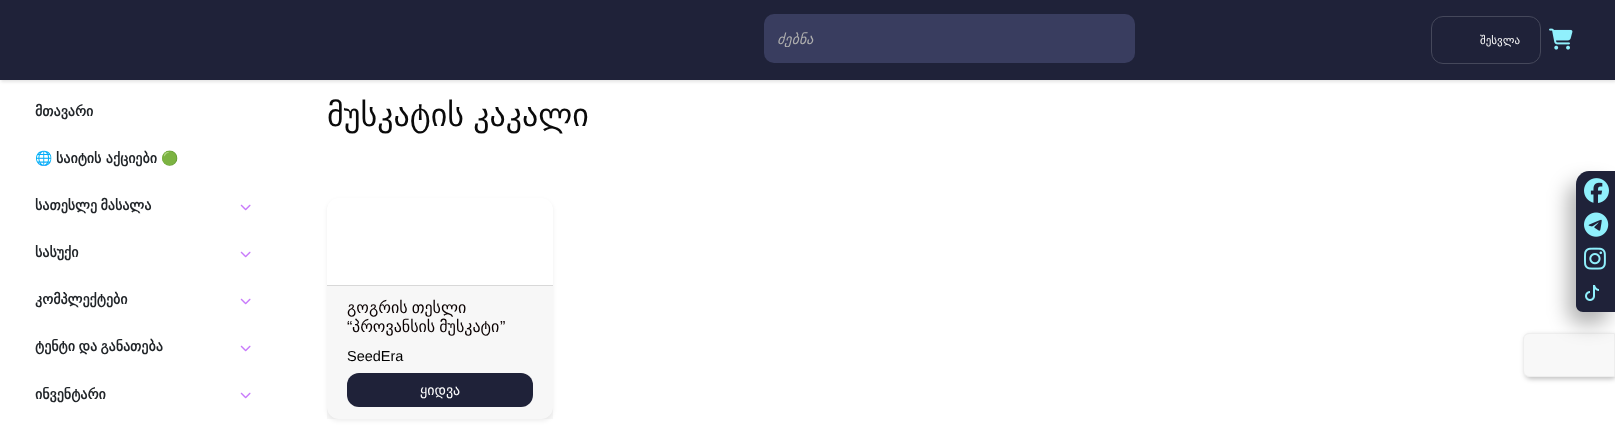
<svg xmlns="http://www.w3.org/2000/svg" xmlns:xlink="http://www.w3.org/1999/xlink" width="1615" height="432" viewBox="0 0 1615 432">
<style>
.cls-1{font:italic 14px DejaVu Sans;fill:#aeaeae}
.cls-2{font:11px DejaVu Sans;fill:#fcfcfc}
.cls-3{font:bold 14px DejaVu Sans;fill:#212529}
.cls-4{font:bold 14px Noto Color Emoji;fill:#212529}
.cls-5{font:32px DejaVu Sans;fill:#0a0a0a}
.cls-6{font:16px DejaVu Sans;fill:#0a0000}
.cls-7{font:16px Liberation Sans;fill:#0a0000}
.cls-8{font:14.5px Liberation Sans;fill:#000000}
.cls-9{font:14px DejaVu Sans;fill:#fcfcfc}
</style>
<defs>
<clipPath id="clip1"><rect x="774" y="31" width="321" height="16"/></clipPath>
</defs>
<rect width="100%" height="100%" fill="#ffffff"/>
<rect fill="#000000" fill-opacity="0.1" filter="blur(1.5px)" x="1" y="2" width="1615" height="80"/>
<rect fill="#1f2239" x="0" y="0" width="1615" height="80"/>
<rect fill="#393d5f" x="764" y="14" width="371" height="49" rx="10"/>
<rect fill="none" stroke="#45485b" x="1431.5" y="16.5" width="109" height="47" rx="11.5"/>
<image xlink:href="image0.png" x="1549" y="28" width="24" height="22"/>
<image xlink:href="image1.png" x="240" y="204" width="11" height="7"/>
<image xlink:href="image1.png" x="240" y="251" width="11" height="7"/>
<image xlink:href="image1.png" x="240" y="298" width="11" height="7"/>
<image xlink:href="image1.png" x="240" y="345" width="11" height="7"/>
<image xlink:href="image1.png" x="240" y="392" width="11" height="7"/>
<rect fill="#000000" fill-opacity="0.07" filter="blur(2px)" x="327" y="200" width="226" height="221" rx="12"/>
<rect fill="#ffffff" x="327" y="198" width="226" height="221" rx="12"/>
<rect fill="#000000" fill-opacity="0.03" x="327" y="286" width="226" height="133"/>
<rect fill="#d8d8d8" x="327" y="285" width="226" height="1"/>
<rect fill="#1f2239" x="347" y="373" width="186" height="34" rx="12"/>
<rect fill="#000000" fill-opacity="0.25" filter="blur(2.5px)" x="1525" y="335" width="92" height="44" rx="6"/>
<path fill="#f8f8f8" stroke="#eeeeee" d="M1529 333.5H1614.5V376.5H1529C1526 376.5 1523.5 374 1523.5 371V339C1523.5 336 1526 333.5 1529 333.5Z"/>
<rect fill="#000000" fill-opacity="0.3" filter="blur(10px)" x="1568" y="183" width="41" height="141" rx="13"/>
<path fill="#1f2239" d="M1589 171H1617V312H1583C1579 312 1576 309 1576 305V184C1576 177 1582 171 1589 171Z"/>
<image xlink:href="image2.png" x="1584" y="178" width="25" height="25"/>
<image xlink:href="image3.png" x="1584" y="212" width="25" height="25"/>
<image xlink:href="image4.png" x="1584" y="247" width="22" height="23"/>
<image xlink:href="image5.png" x="1585" y="285" width="14" height="16"/>
<g clip-path="url(#clip1)">
<text class="cls-1" x="777" y="44">ძებნა</text>
</g>
<text class="cls-2" x="1480" y="44">შესვლა</text>
<text class="cls-3" x="35" y="116">მთავარი</text>
<text class="cls-4" x="35" y="163">🌐</text>
<text class="cls-3" x="56" y="163">საიტის აქციები</text>
<text class="cls-4" x="161" y="163">🟢</text>
<text class="cls-3" x="35" y="210" word-spacing="-1">სათესლე მასალა</text>
<text class="cls-3" x="35" y="257">სასუქი</text>
<text class="cls-3" x="35" y="304">კომპლექტები</text>
<text class="cls-3" x="35" y="351" word-spacing="-1">ტენტი და განათება</text>
<text class="cls-3" x="35" y="399">ინვენტარი</text>
<text class="cls-5" x="327" y="126" word-spacing="-1">მუსკატის კაკალი</text>
<text class="cls-6" x="347" y="313" word-spacing="-1">გოგრის თესლი</text>
<text class="cls-7" x="347" y="332">“</text>
<text class="cls-6" x="352" y="332" word-spacing="-1">პროვანსის მუსკატი</text>
<text class="cls-7" x="500" y="332">”</text>
<text class="cls-8" x="347" y="361">SeedEra</text>
<text class="cls-9" x="420" y="395">ყიდვა</text>
</svg>
